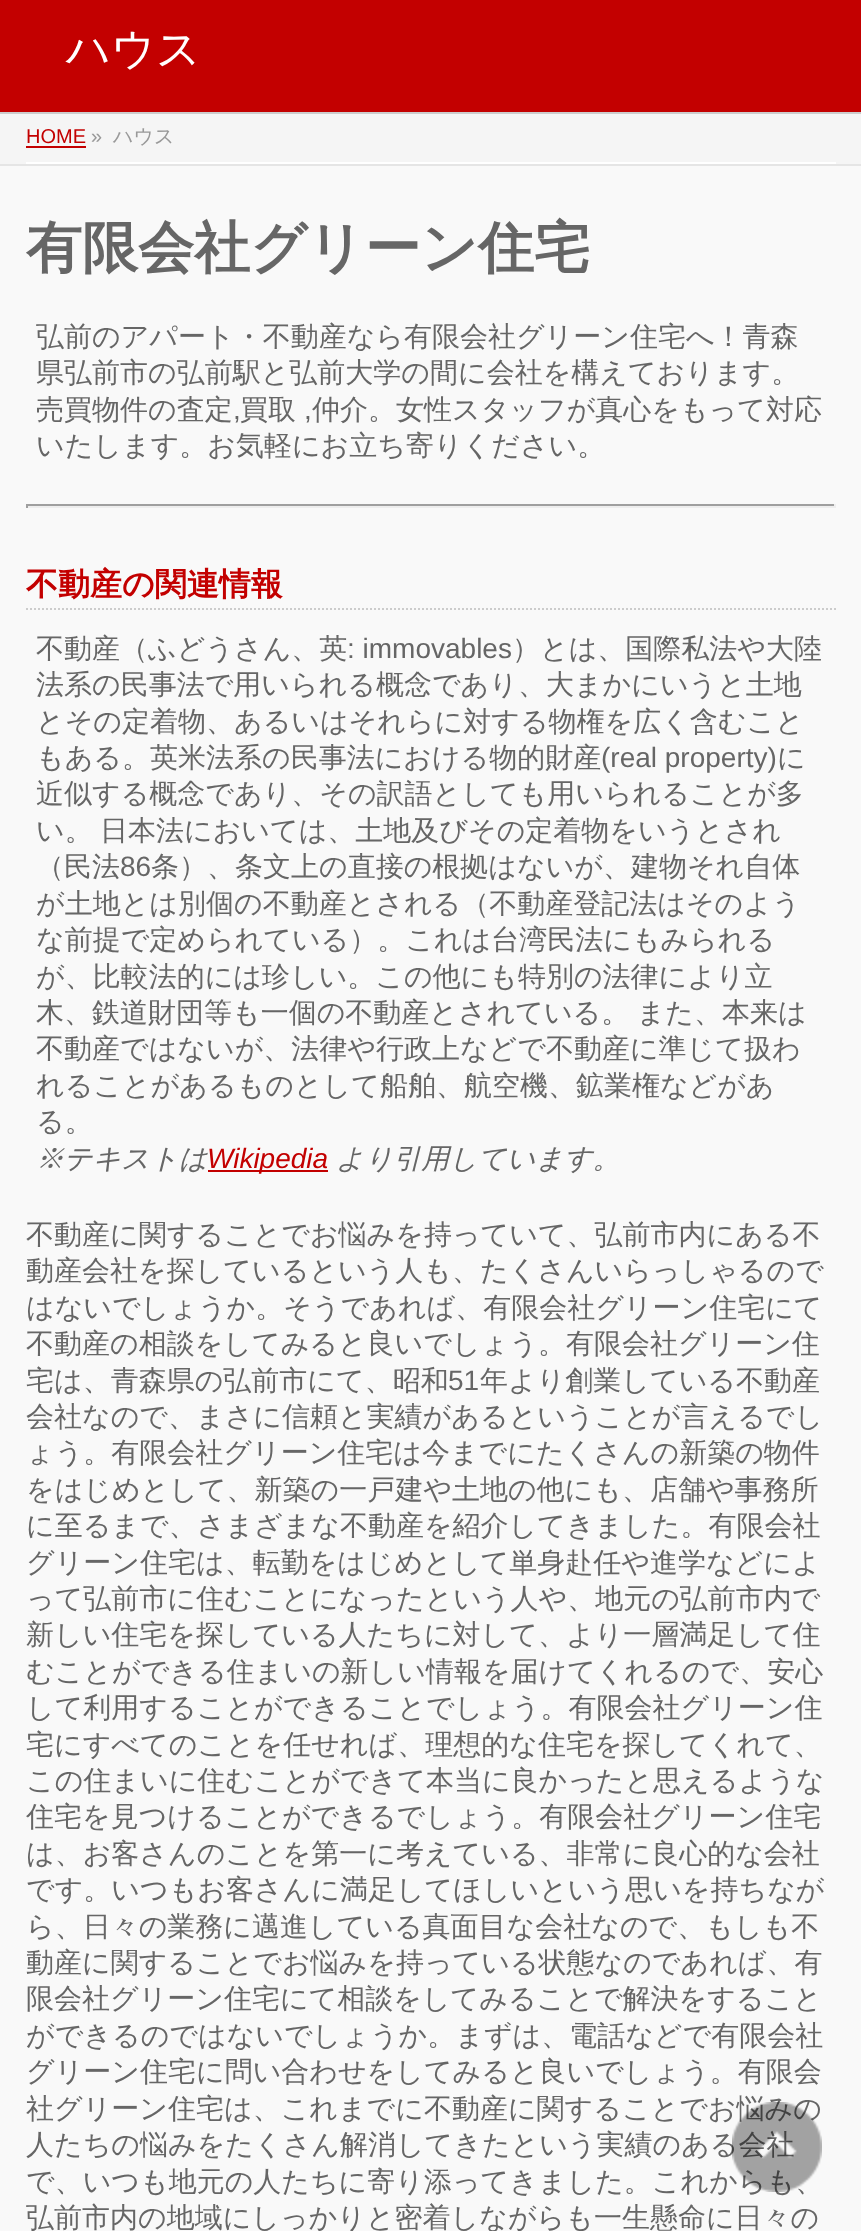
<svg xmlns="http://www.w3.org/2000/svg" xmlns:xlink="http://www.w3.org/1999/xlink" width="861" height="2231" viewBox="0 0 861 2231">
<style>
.cls-1{font:500 44px WenQuanYi Zen Hei;fill:#ffffff}
.cls-2{font:20px Liberation Sans;fill:#c30000}
.cls-3{font:20px Liberation Sans;fill:#999999}
.cls-4{font:500 20px WenQuanYi Zen Hei;fill:#999999}
.cls-5{font:bold 56px WenQuanYi Zen Hei;fill:#666666}
.cls-6{font:500 28px WenQuanYi Zen Hei;fill:#666666}
.cls-7{font:28px Liberation Sans;fill:#666666}
.cls-8{font:bold 32px WenQuanYi Zen Hei;fill:#c30000}
.cls-9{font:italic 500 28px WenQuanYi Zen Hei;fill:#666666}
.cls-10{font:italic 28px Liberation Sans;fill:#c30000}
</style>
<rect width="100%" height="100%" fill="#f9f9f9"/>
<rect fill="#c30000" x="0" y="0" width="861" height="112"/>
<rect fill="#cccccc" x="0" y="112" width="861" height="2"/>
<rect fill="#f5f5f5" x="0" y="114" width="861" height="50"/>
<rect fill="#e5e5e5" x="0" y="164" width="861" height="2"/>
<rect fill="#ffffff" x="26" y="162" width="810" height="2"/>
<rect fill="#c30000" x="26" y="146" width="60" height="2"/>
<rect fill="#9f9f9f" x="26" y="504" width="810" height="2"/>
<rect fill="#eeeeee" x="834" y="504" width="2" height="4"/>
<rect fill="#eeeeee" x="26" y="506" width="810" height="2"/>
<rect fill="#9f9f9f" x="26" y="504" width="2" height="4"/>
<path fill="none" stroke="#cccccc" stroke-width="2" stroke-dasharray="2 2" d="M26 609H836"/>
<rect fill="#c30000" x="208" y="1170" width="120" height="2"/>
<text class="cls-1" x="66" y="64">ハウス</text>
<text class="cls-2" x="26" y="143">HOME</text>
<text class="cls-3" x="91" y="143">»</text>
<text class="cls-4" x="113" y="143">ハウス</text>
<text class="cls-5" x="26" y="267">有限会社グリーン住宅</text>
<text class="cls-6"><tspan x="36" y="346">弘前のアパート・不動産なら有限会社グリーン住宅へ！青森</tspan><tspan x="36" y="382">県弘前市の弘前駅と弘前大学の間に会社を構えております。</tspan><tspan x="36" y="419">売買物件の査定</tspan></text>
<text class="cls-7" x="233" y="419">,</text>
<text class="cls-6" x="240" y="419">買取</text>
<text class="cls-7" x="304" y="419">,</text>
<text class="cls-6" x="312" y="419">仲介。女性スタッフが真心をもって対応</text>
<text class="cls-6" x="36" y="455">いたします。お気軽にお立ち寄りください。</text>
<text class="cls-8" x="26" y="595">不動産の関連情報</text>
<text class="cls-6" x="36" y="658">不動産（ふどうさん、英</text>
<text class="cls-7" x="347" y="658">: immovables</text>
<text class="cls-6" x="512" y="658">）とは、国際私法や大陸</text>
<text class="cls-6"><tspan x="36" y="694">法系の民事法で用いられる概念であり、大まかにいうと土地</tspan><tspan x="36" y="731">とその定着物、あるいはそれらに対する物権を広く含むこと</tspan><tspan x="36" y="767">もある。英米法系の民事法における物的財産</tspan></text>
<text class="cls-7" x="601" y="767">(real property)</text>
<text class="cls-6" x="777" y="767">に</text>
<text class="cls-6"><tspan x="36" y="803">近似する概念であり、その訳語としても用いられることが多</tspan><tspan x="36" y="840" word-spacing="-1">い。 日本法においては、土地及びその定着物をいうとされ</tspan><tspan x="36" y="876">（民法</tspan></text>
<text class="cls-7" x="120" y="876">86</text>
<text class="cls-6" x="151" y="876">条）、条文上の直接の根拠はないが、建物それ自体</text>
<text class="cls-6"><tspan x="36" y="913">が土地とは別個の不動産とされる（不動産登記法はそのよう</tspan><tspan x="36" y="949">な前提で定められている）。これは台湾民法にもみられる</tspan><tspan x="36" y="986">が、比較法的には珍しい。この他にも特別の法律により立</tspan><tspan x="36" y="1022" word-spacing="-1">木、鉄道財団等も一個の不動産とされている。 また、本来は</tspan><tspan x="36" y="1058">不動産ではないが、法律や行政上などで不動産に準じて扱わ</tspan><tspan x="36" y="1095">れることがあるものとして船舶、航空機、鉱業権などがあ</tspan><tspan x="36" y="1131">る。</tspan></text>
<text class="cls-9" x="36" y="1168">※テキストは</text>
<text class="cls-10" x="207" y="1168">Wikipedia</text>
<text class="cls-9" x="336" y="1168">より引用しています。</text>
<text class="cls-6"><tspan x="26" y="1244">不動産に関することでお悩みを持っていて、弘前市内にある不</tspan><tspan x="26" y="1280">動産会社を探しているという人も、たくさんいらっしゃるので</tspan><tspan x="26" y="1317">はないでしょうか。そうであれば、有限会社グリーン住宅にて</tspan><tspan x="26" y="1353">不動産の相談をしてみると良いでしょう。有限会社グリーン住</tspan><tspan x="26" y="1390">宅は、青森県の弘前市にて、昭和</tspan></text>
<text class="cls-7" x="448" y="1390">51</text>
<text class="cls-6" x="480" y="1390">年より創業している不動産</text>
<text class="cls-6"><tspan x="26" y="1426">会社なので、まさに信頼と実績があるということが言えるでし</tspan><tspan x="26" y="1462">ょう。有限会社グリーン住宅は今までにたくさんの新築の物件</tspan><tspan x="26" y="1499">をはじめとして、新築の一戸建や土地の他にも、店舗や事務所</tspan><tspan x="26" y="1535">に至るまで、さまざまな不動産を紹介してきました。有限会社</tspan><tspan x="26" y="1572">グリーン住宅は、転勤をはじめとして単身赴任や進学などによ</tspan><tspan x="26" y="1608">って弘前市に住むことになったという人や、地元の弘前市内で</tspan><tspan x="26" y="1644">新しい住宅を探している人たちに対して、より一層満足して住</tspan><tspan x="26" y="1681">むことができる住まいの新しい情報を届けてくれるので、安心</tspan><tspan x="26" y="1717">して利用することができることでしょう。有限会社グリーン住</tspan><tspan x="26" y="1754">宅にすべてのことを任せれば、理想的な住宅を探してくれて、</tspan><tspan x="26" y="1790">この住まいに住むことができて本当に良かったと思えるような</tspan><tspan x="26" y="1826">住宅を見つけることができるでしょう。有限会社グリーン住宅</tspan><tspan x="26" y="1863">は、お客さんのことを第一に考えている、非常に良心的な会社</tspan><tspan x="26" y="1899">です。いつもお客さんに満足してほしいという思いを持ちなが</tspan><tspan x="26" y="1936">ら、日々の業務に邁進している真面目な会社なので、もしも不</tspan><tspan x="26" y="1972">動産に関することでお悩みを持っている状態なのであれば、有</tspan><tspan x="26" y="2008">限会社グリーン住宅にて相談をしてみることで解決をすること</tspan><tspan x="26" y="2045">ができるのではないでしょうか。まずは、電話などで有限会社</tspan><tspan x="26" y="2081">グリーン住宅に問い合わせをしてみると良いでしょう。有限会</tspan><tspan x="26" y="2118">社グリーン住宅は、これまでに不動産に関することでお悩みの</tspan><tspan x="26" y="2154">人たちの悩みをたくさん解消してきたという実績のある会社</tspan><tspan x="26" y="2191">で、いつも地元の人たちに寄り添ってきました。これからも、</tspan><tspan x="26" y="2227">弘前市内の地域にしっかりと密着しながらも一生懸命に日々の</tspan></text>
<image xlink:href="image0.png" x="732" y="2102" width="90" height="90"/>
</svg>
